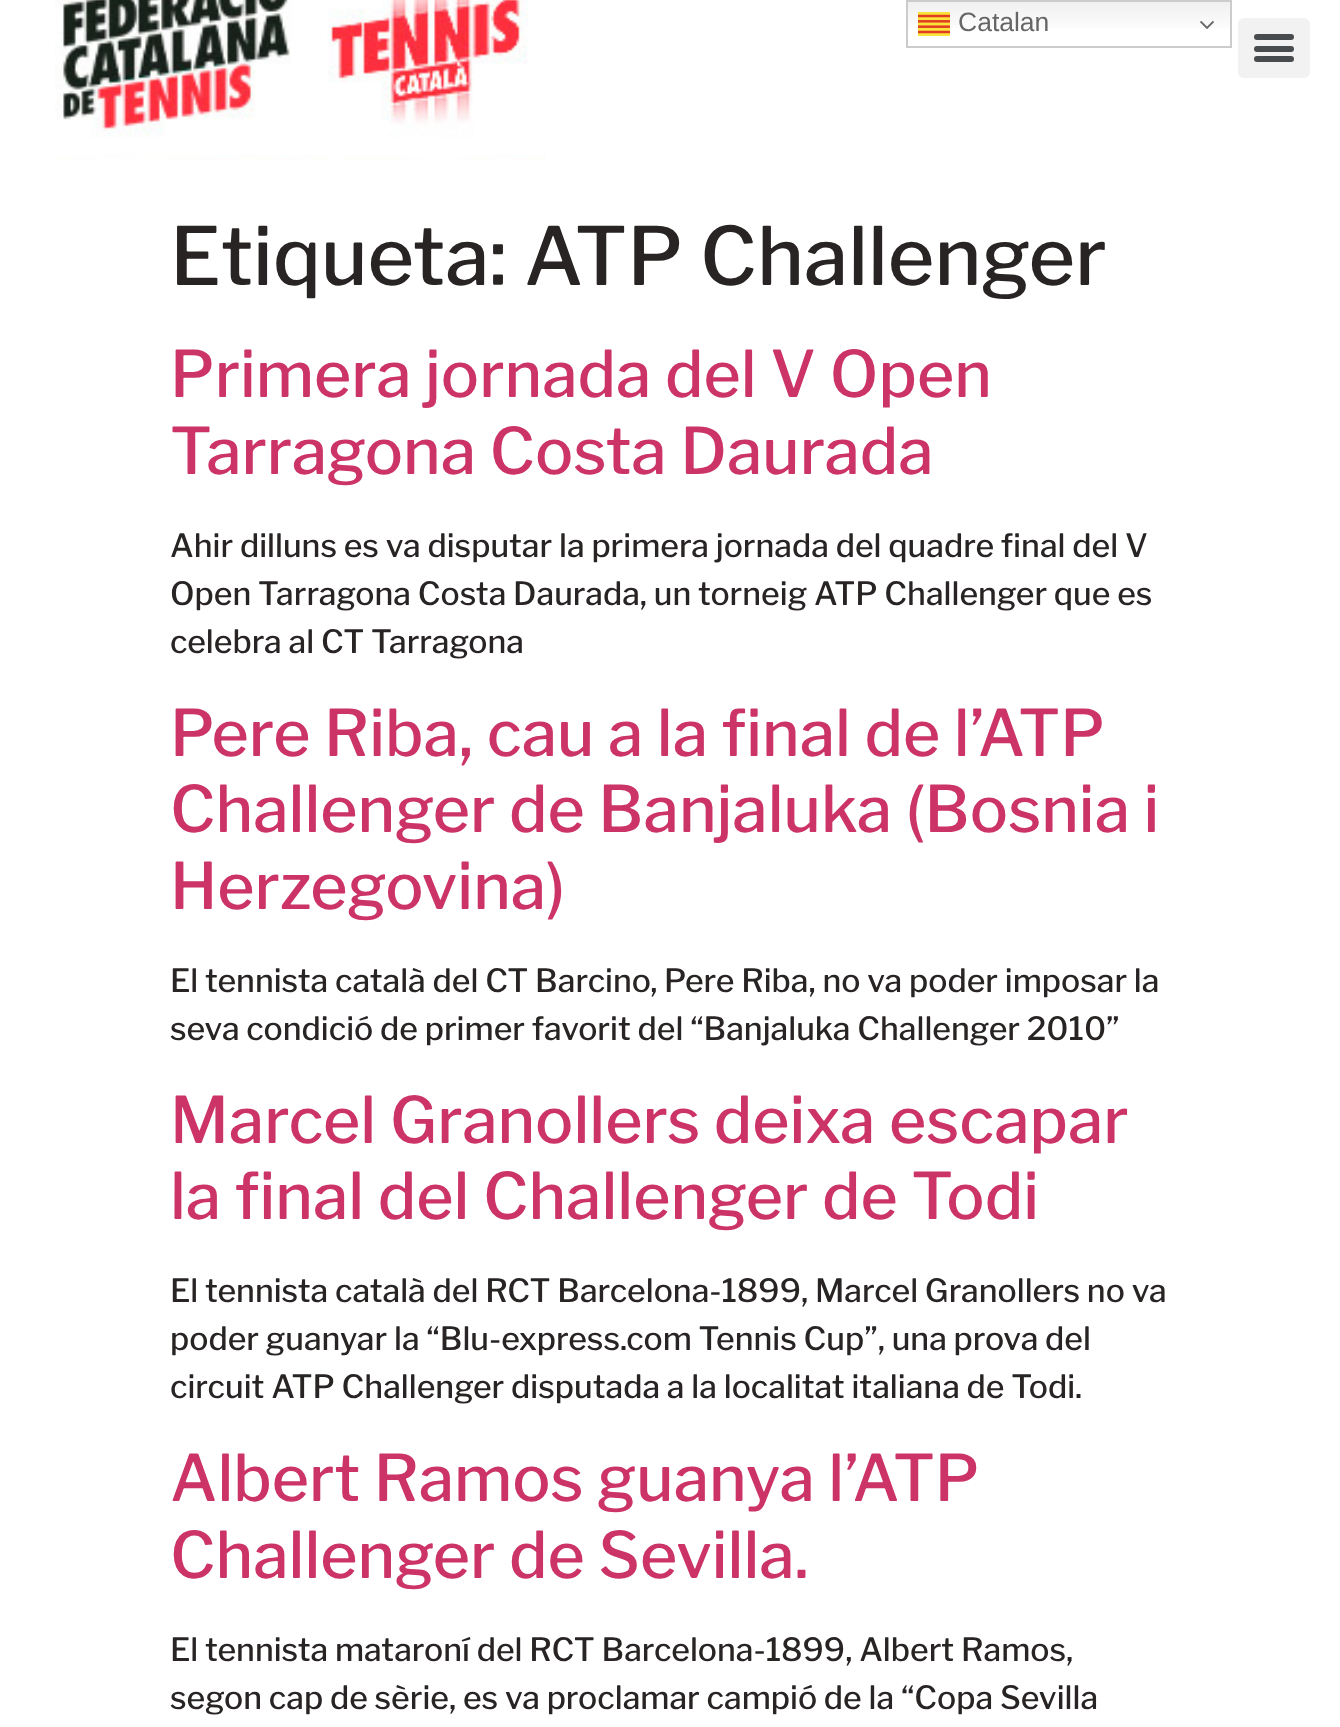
<svg xmlns="http://www.w3.org/2000/svg" xmlns:xlink="http://www.w3.org/1999/xlink" width="1340" height="1727" viewBox="0 0 1340 1727">
<style>
.cls-1{font:26.5px Liberation Sans;fill:#666666}
.cls-2{font:500 80px Libre Franklin;fill:#292424}
.cls-3{font:500 64px Libre Franklin;fill:#cc3366}
.cls-4{font:500 32px Libre Franklin;fill:#292424}
</style>
<defs>
<linearGradient id="g1" gradientUnits="userSpaceOnUse" x1="1069" y1="0" x2="1069" y2="48"><stop offset="0" stop-color="#efefef"/><stop offset="0.7" stop-color="#ffffff"/></linearGradient>
</defs>
<rect width="100%" height="100%" fill="#ffffff"/>
<image xlink:href="image0.png" x="55" y="0" width="491" height="160"/>
<rect fill="#f2f2f2" x="1238" y="18" width="72" height="60" rx="6"/>
<rect fill="#494c4f" x="1254" y="46" width="40" height="6" rx="3"/>
<rect fill="#494c4f" x="1254" y="34" width="40" height="6" rx="3"/>
<rect fill="#494c4f" x="1254" y="56" width="40" height="6" rx="3"/>
<rect fill="url(#g1)" x="908" y="2" width="322" height="26"/>
<rect fill="none" stroke="#cccccc" stroke-width="2" x="907" y="1" width="324" height="46"/>
<image xlink:href="image1.png" x="918" y="12" width="32" height="24"/>
<image xlink:href="image2.png" x="1200" y="21" width="14" height="8"/>
<text class="cls-1" x="958" y="31">Catalan</text>
<text class="cls-2" x="170" y="285">Etiqueta: ATP Challenger</text>
<text class="cls-3"><tspan x="170" y="397">Primera jornada del V Open</tspan><tspan x="170" y="474">Tarragona Costa Daurada</tspan></text>
<text class="cls-4"><tspan x="170" y="557">Ahir dilluns es va disputar la primera jornada del quadre final del V</tspan><tspan x="170" y="605">Open Tarragona Costa Daurada, un torneig ATP Challenger que es</tspan><tspan x="170" y="653">celebra al CT Tarragona</tspan></text>
<text class="cls-3"><tspan x="170" y="756">Pere Riba, cau a la final de l’ATP</tspan><tspan x="170" y="832">Challenger de Banjaluka (Bosnia i</tspan><tspan x="170" y="909">Herzegovina)</tspan></text>
<text class="cls-4"><tspan x="170" y="992">El tennista català del CT Barcino, Pere Riba, no va poder imposar la</tspan><tspan x="170" y="1040">seva condició de primer favorit del “Banjaluka Challenger 2010”</tspan></text>
<text class="cls-3"><tspan x="170" y="1143">Marcel Granollers deixa escapar</tspan><tspan x="170" y="1219">la final del Challenger de Todi</tspan></text>
<text class="cls-4"><tspan x="170" y="1302">El tennista català del RCT Barcelona-1899, Marcel Granollers no va</tspan><tspan x="170" y="1350">poder guanyar la “Blu-express.com Tennis Cup”, una prova del</tspan><tspan x="170" y="1398">circuit ATP Challenger disputada a la localitat italiana de Todi.</tspan></text>
<text class="cls-3"><tspan x="170" y="1501">Albert Ramos guanya l’ATP</tspan><tspan x="170" y="1578">Challenger de Sevilla.</tspan></text>
<text class="cls-4"><tspan x="170" y="1661">El tennista mataroní del RCT Barcelona-1899, Albert Ramos,</tspan><tspan x="170" y="1709">segon cap de sèrie, es va proclamar campió de la “Copa Sevilla</tspan></text>
</svg>
